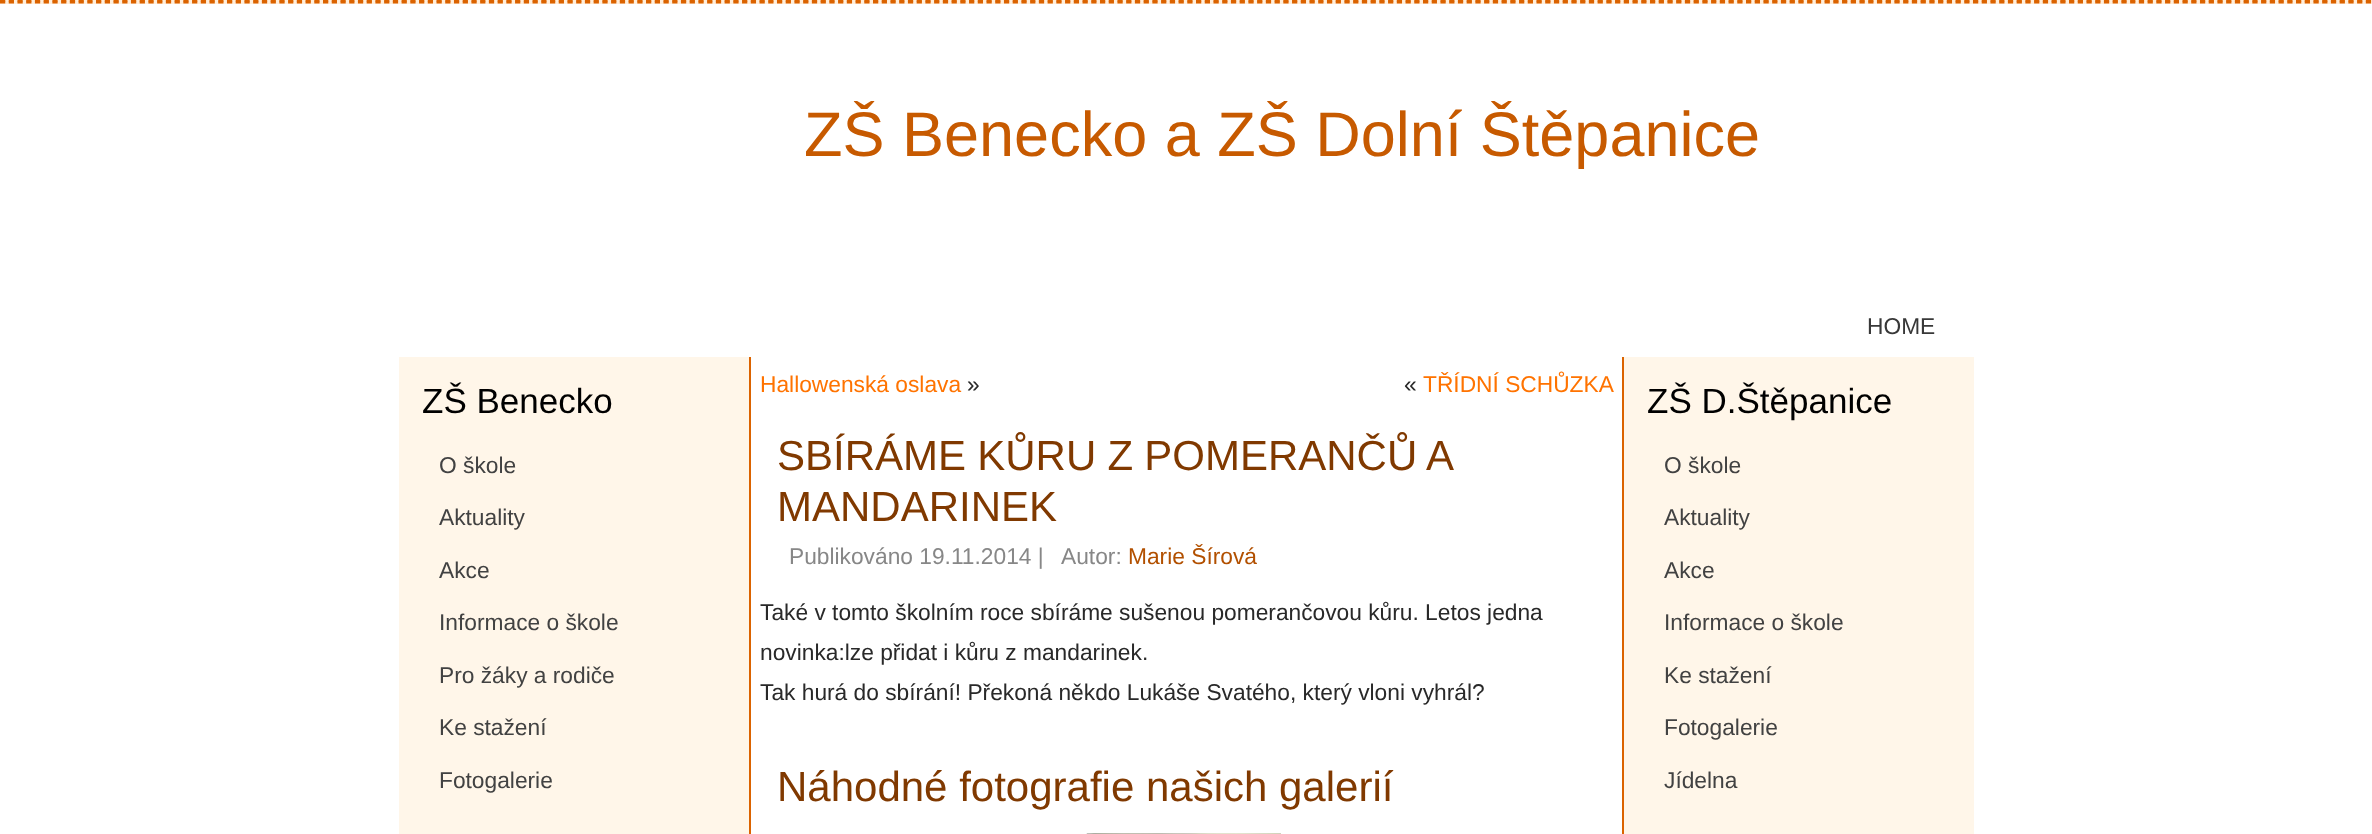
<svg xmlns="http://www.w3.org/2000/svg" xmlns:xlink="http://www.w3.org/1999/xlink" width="2372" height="834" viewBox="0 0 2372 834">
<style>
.cls-1{font:63px Liberation Sans;fill:#c75a00}
.cls-2{font:22.75px Liberation Sans;fill:#383838}
.cls-3{font:35px Liberation Sans;fill:#000000}
.cls-4{font:22.75px Liberation Sans;fill:#424242}
.cls-5{font:22.75px Liberation Sans;fill:#ff7300}
.cls-6{font:22.75px Liberation Sans;fill:#292929}
.cls-7{font:42px Liberation Sans;fill:#803900}
.cls-8{font:22.75px Liberation Sans;fill:#878787}
.cls-9{font:22.75px Liberation Sans;fill:#b25000}
</style>
<rect width="100%" height="100%" fill="#ffffff"/>
<rect fill="#ffefdc" x="0" y="0" width="2372" height="4"/>
<path fill="none" stroke="#db6300" stroke-width="1.8" stroke-dasharray="5.25 3.48" d="M0 1H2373"/>
<path fill="none" stroke="#db6300" stroke-width="1.8" stroke-dasharray="5.25 3.48" d="M0 2.5H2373"/>
<rect fill="#fff6e9" x="399" y="357" width="350" height="477"/>
<rect fill="#db6300" x="749" y="357" width="2" height="477"/>
<image xlink:href="image0.png" x="1086" y="833" width="195" height="1"/>
<rect fill="#fff6e9" x="1624" y="357" width="350" height="477"/>
<rect fill="#db6300" x="1622" y="357" width="2" height="477"/>
<text class="cls-1" x="804" y="156">ZŠ Benecko a ZŠ Dolní Štěpanice</text>
<text class="cls-2" x="1867" y="334">HOME</text>
<text class="cls-3" x="422" y="413">ZŠ Benecko</text>
<text class="cls-4" x="439" y="473">O škole</text>
<text class="cls-4" x="439" y="525">Aktuality</text>
<text class="cls-4" x="439" y="578">Akce</text>
<text class="cls-4" x="439" y="630">Informace o škole</text>
<text class="cls-4" x="439" y="683">Pro žáky a rodiče</text>
<text class="cls-4" x="439" y="735">Ke stažení</text>
<text class="cls-4" x="439" y="788">Fotogalerie</text>
<text class="cls-5" x="760" y="392">Hallowenská oslava</text>
<text class="cls-6" x="967" y="392">»</text>
<text class="cls-6" x="1404" y="392">«</text>
<text class="cls-5" x="1423" y="392">TŘÍDNÍ SCHŮZKA</text>
<text class="cls-7"><tspan x="777" y="470" word-spacing="-0.5">SBÍRÁME KŮRU Z POMERANČŮ A</tspan><tspan x="777" y="521">MANDARINEK</tspan></text>
<text class="cls-8" x="789" y="564">Publikováno 19.11.2014 |</text>
<text class="cls-8" x="1061" y="564">Autor:</text>
<text class="cls-9" x="1128" y="564">Marie Šírová</text>
<text class="cls-6"><tspan x="760" y="620">Také v tomto školním roce sbíráme sušenou pomerančovou kůru. Letos jedna</tspan><tspan x="760" y="660">novinka:lze přidat i kůru z mandarinek.</tspan><tspan x="760" y="700">Tak hurá do sbírání! Překoná někdo Lukáše Svatého, který vloni vyhrál?</tspan></text>
<text class="cls-7" x="777" y="801">Náhodné fotografie našich galerií</text>
<text class="cls-3" x="1647" y="413">ZŠ D.Štěpanice</text>
<text class="cls-4" x="1664" y="473">O škole</text>
<text class="cls-4" x="1664" y="525">Aktuality</text>
<text class="cls-4" x="1664" y="578">Akce</text>
<text class="cls-4" x="1664" y="630">Informace o škole</text>
<text class="cls-4" x="1664" y="683">Ke stažení</text>
<text class="cls-4" x="1664" y="735">Fotogalerie</text>
<text class="cls-4" x="1664" y="788">Jídelna</text>
</svg>
